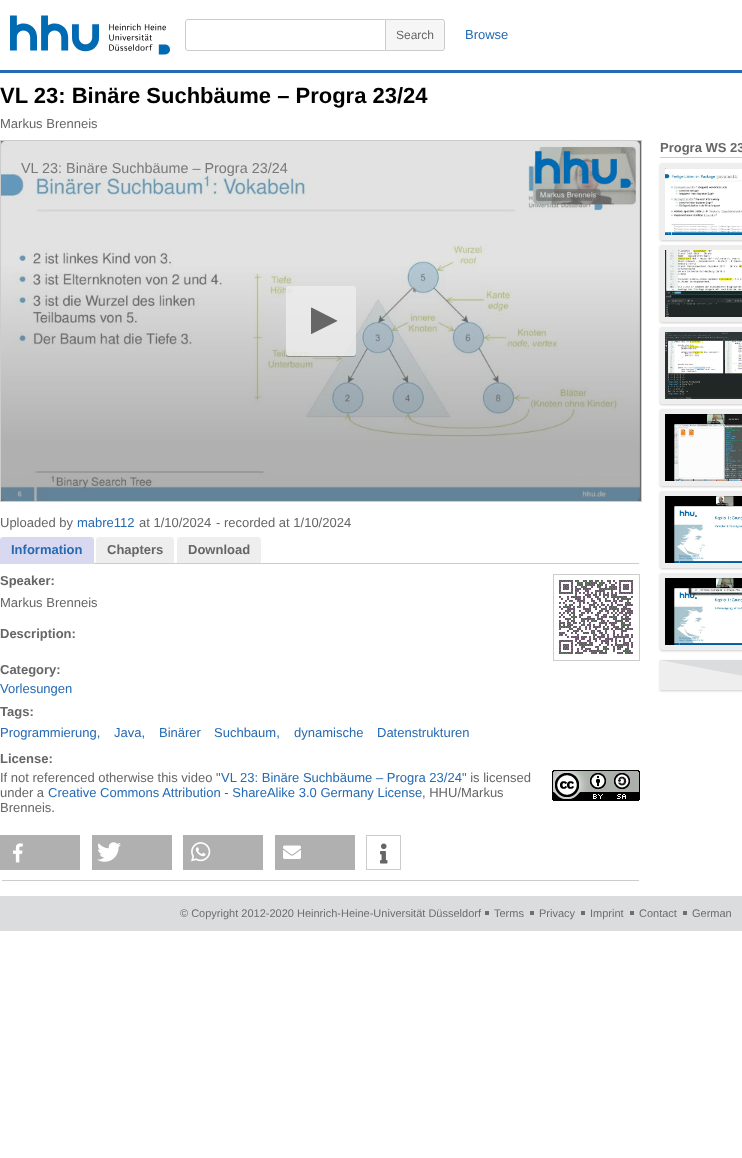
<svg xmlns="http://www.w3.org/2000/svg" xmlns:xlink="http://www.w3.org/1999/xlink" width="742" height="1158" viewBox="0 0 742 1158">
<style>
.cls-1{font:12px Liberation Sans;fill:#666666}
.cls-2{font:13px Liberation Sans;fill:#266ab3}
.cls-3{font:bold 22px Liberation Sans;fill:#000000}
.cls-4{font:13px Liberation Sans;fill:#666666}
.cls-5{font:bold 13px Liberation Sans;fill:#666666}
.cls-6{font:bold 13px Liberation Sans;fill:#266ab3}
.cls-7{font:14.4px Liberation Sans;fill:#797979}
.cls-8{font:11px Liberation Sans;fill:#6d6e6e}
</style>
<defs>
<clipPath id="clip1"><rect x="185" y="19" width="200" height="32"/></clipPath>
<clipPath id="clip2"><path d="M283 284H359V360H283ZM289 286H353C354.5 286 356 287.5 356 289V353C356 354.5 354.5 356 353 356H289C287.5 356 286 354.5 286 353V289C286 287.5 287.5 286 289 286Z" clip-rule="evenodd"/></clipPath>
</defs>
<rect width="100%" height="100%" fill="#ffffff"/>
<image xlink:href="image0.png" x="10" y="15" width="160" height="40"/>
<path fill="#f6f6f6" stroke="#cccccc" d="M385.5 19.5H442C443.5 19.5 444.5 20.5 444.5 22V48C444.5 49.5 443.5 50.5 442 50.5H385.5Z"/>
<g clip-path="url(#clip1)">
<path fill="none" stroke="#cccccc" d="M188 19.5H452.5V50.5H188C186.5 50.5 185.5 49.5 185.5 48V22C185.5 20.5 186.5 19.5 188 19.5Z"/>
</g>
<rect fill="#266ab3" x="0" y="70" width="742" height="3"/>
<rect fill="#cccccc" x="660" y="157" width="82" height="1"/>
<rect fill="#cccccc" filter="blur(1px)" x="660" y="164" width="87" height="77" rx="2"/>
<rect fill="#eeeeee" x="660" y="163" width="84" height="77" rx="2"/>
<image xlink:href="image1.png" x="665" y="168" width="77" height="67"/>
<rect fill="#cccccc" filter="blur(1px)" x="660" y="246" width="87" height="77" rx="2"/>
<rect fill="#eeeeee" x="660" y="245" width="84" height="77" rx="2"/>
<image xlink:href="image2.png" x="665" y="250" width="77" height="67"/>
<rect fill="#cccccc" filter="blur(1px)" x="660" y="328" width="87" height="77" rx="2"/>
<rect fill="#eeeeee" x="660" y="327" width="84" height="77" rx="2"/>
<image xlink:href="image3.png" x="665" y="332" width="77" height="67"/>
<rect fill="#cccccc" filter="blur(1px)" x="660" y="410" width="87" height="77" rx="2"/>
<rect fill="#eeeeee" x="660" y="409" width="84" height="77" rx="2"/>
<image xlink:href="image4.png" x="665" y="414" width="77" height="67"/>
<rect fill="#cccccc" filter="blur(1px)" x="660" y="492" width="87" height="77" rx="2"/>
<rect fill="#eeeeee" x="660" y="491" width="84" height="77" rx="2"/>
<image xlink:href="image5.png" x="665" y="496" width="77" height="67"/>
<rect fill="#cccccc" filter="blur(1px)" x="660" y="574" width="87" height="77" rx="2"/>
<rect fill="#eeeeee" x="660" y="573" width="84" height="77" rx="2"/>
<image xlink:href="image6.png" x="665" y="578" width="77" height="67"/>
<rect fill="#cccccc" filter="blur(1px)" x="660" y="661" width="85" height="30"/>
<rect fill="#eeeeee" x="660" y="660" width="82" height="30"/>
<path fill="#dbdcdd" d="M660 660H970L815 690Z"/>
<rect fill="#cccccc" x="2" y="880" width="637" height="1"/>
<rect fill="#cccccc" x="94" y="563" width="545" height="1"/>
<path fill="#d8d8f0" d="M3 538H91C92 538 93 539 93 540V564H1V540C1 539 2 538 3 538Z"/>
<path fill="#d8d8f0" fill-rule="evenodd" d="M3 537H91C93 537 94 538 94 540V564H0V540C0 538 1 537 3 537ZM3 538H91C92 538 93 539 93 540V564H1V540C1 539 2 538 3 538Z"/>
<path fill="#eeeeee" d="M99 538H171C172 538 173 539 173 540V563H97V540C97 539 98 538 99 538Z"/>
<path fill="#eeeeee" fill-rule="evenodd" d="M99 537H171C173 537 174 538 174 540V563H96V540C96 538 97 537 99 537ZM99 538H171C172 538 173 539 173 540V563H97V540C97 539 98 538 99 538Z"/>
<path fill="#eeeeee" d="M180 538H258C259 538 260 539 260 540V563H178V540C178 539 179 538 180 538Z"/>
<path fill="#eeeeee" fill-rule="evenodd" d="M180 537H258C260 537 261 538 261 540V563H177V540C177 538 178 537 180 537ZM180 538H258C259 538 260 539 260 540V563H178V540C178 539 179 538 180 538Z"/>
<rect fill="none" stroke="#cccccc" x="553.5" y="574.5" width="86" height="86"/>
<image xlink:href="image7.png" x="559" y="580" width="74" height="74"/>
<image xlink:href="image8.png" x="552" y="770" width="88" height="31"/>
<rect fill="#b0b0b0" x="0" y="835" width="80" height="35"/>
<image xlink:href="image9.png" x="13" y="843" width="10" height="20"/>
<rect fill="#b0b0b0" x="92" y="835" width="80" height="35"/>
<image xlink:href="image10.png" x="97" y="842" width="24" height="20"/>
<rect fill="#b0b0b0" x="183" y="835" width="80" height="35"/>
<image xlink:href="image11.png" x="191" y="842" width="20" height="20"/>
<rect fill="#b0b0b0" x="275" y="835" width="80" height="35"/>
<image xlink:href="image12.png" x="283" y="845" width="18" height="14"/>
<rect fill="none" stroke="#cccccc" x="366.5" y="835.5" width="34" height="34"/>
<image xlink:href="image13.png" x="380" y="843" width="8" height="21"/>
<rect fill="none" stroke="#cccccc" x="0.5" y="140.5" width="641" height="361"/>
<image xlink:href="image14.png" x="1" y="141" width="640" height="360"/>
<image xlink:href="image15.png" x="535" y="151" width="96" height="37"/>
<g clip-path="url(#clip2)">
<rect fill="#000000" fill-opacity="0.25" filter="blur(0.5px)" x="286" y="287" width="70" height="70" rx="3"/>
</g>
<rect fill="#eeeeee" fill-opacity="0.8" x="286" y="286" width="70" height="70" rx="3"/>
<path fill="#666666" d="M311.5 334H311V308L311.5 307.5L337 320.5L337.5 321Z"/>
<rect fill="#dbdcdd" x="0" y="896" width="742" height="35"/>
<rect fill="#6d6e6e" x="485" y="911" width="4" height="4"/>
<rect fill="#6d6e6e" x="530" y="911" width="4" height="4"/>
<rect fill="#6d6e6e" x="581" y="911" width="4" height="4"/>
<rect fill="#6d6e6e" x="630" y="911" width="4" height="4"/>
<rect fill="#6d6e6e" x="683" y="911" width="4" height="4"/>
<text class="cls-1" x="396" y="39">Search</text>
<text class="cls-2" x="465" y="39">Browse</text>
<text class="cls-3" x="0" y="103">VL 23: Binäre Suchbäume – Progra 23/24</text>
<text class="cls-4" x="0" y="128">Markus Brenneis</text>
<text class="cls-5" x="660" y="152">Progra WS 23</text>
<text class="cls-4" x="0" y="527">Uploaded by</text>
<text class="cls-2" x="77" y="527">mabre112</text>
<text class="cls-4" x="139" y="527">at 1/10/2024</text>
<text class="cls-4" x="216" y="527">- recorded at 1/10/2024</text>
<text class="cls-6" x="11" y="554">Information</text>
<text class="cls-5" x="107" y="554">Chapters</text>
<text class="cls-5" x="188" y="554">Download</text>
<text class="cls-5" x="0" y="585">Speaker:</text>
<text class="cls-4" x="0" y="607">Markus Brenneis</text>
<text class="cls-5" x="0" y="638">Description:</text>
<text class="cls-5" x="0" y="674">Category:</text>
<text class="cls-2" x="0" y="693">Vorlesungen</text>
<text class="cls-5" x="0" y="716">Tags:</text>
<text class="cls-2" x="0" y="737">Programmierung,</text>
<text class="cls-2" x="114" y="737">Java,</text>
<text class="cls-2" x="159" y="737">Binärer</text>
<text class="cls-2" x="214" y="737">Suchbaum,</text>
<text class="cls-2" x="294" y="737">dynamische</text>
<text class="cls-2" x="377" y="737">Datenstrukturen</text>
<text class="cls-5" x="0" y="763">License:</text>
<text class="cls-4" x="0" y="782">If not referenced otherwise this video "</text>
<text class="cls-2" x="221" y="782">VL 23: Binäre Suchbäume – Progra 23/24</text>
<text class="cls-4" x="462" y="782">" is licensed</text>
<text class="cls-4" x="0" y="797">under a</text>
<text class="cls-2" x="48" y="797">Creative Commons Attribution - ShareAlike 3.0 Germany License</text>
<text class="cls-4" x="422" y="797">, HHU/Markus</text>
<text class="cls-4" x="0" y="812">Brenneis.</text>
<text class="cls-7" x="21" y="173">VL 23: Binäre Suchbäume – Progra 23/24</text>
<text class="cls-8" x="180" y="917">© Copyright 2012-2020 Heinrich-Heine-Universität Düsseldorf</text>
<text class="cls-8" x="494" y="917">Terms</text>
<text class="cls-8" x="539" y="917">Privacy</text>
<text class="cls-8" x="590" y="917">Imprint</text>
<text class="cls-8" x="639" y="917">Contact</text>
<text class="cls-8" x="692" y="917">German</text>
</svg>
